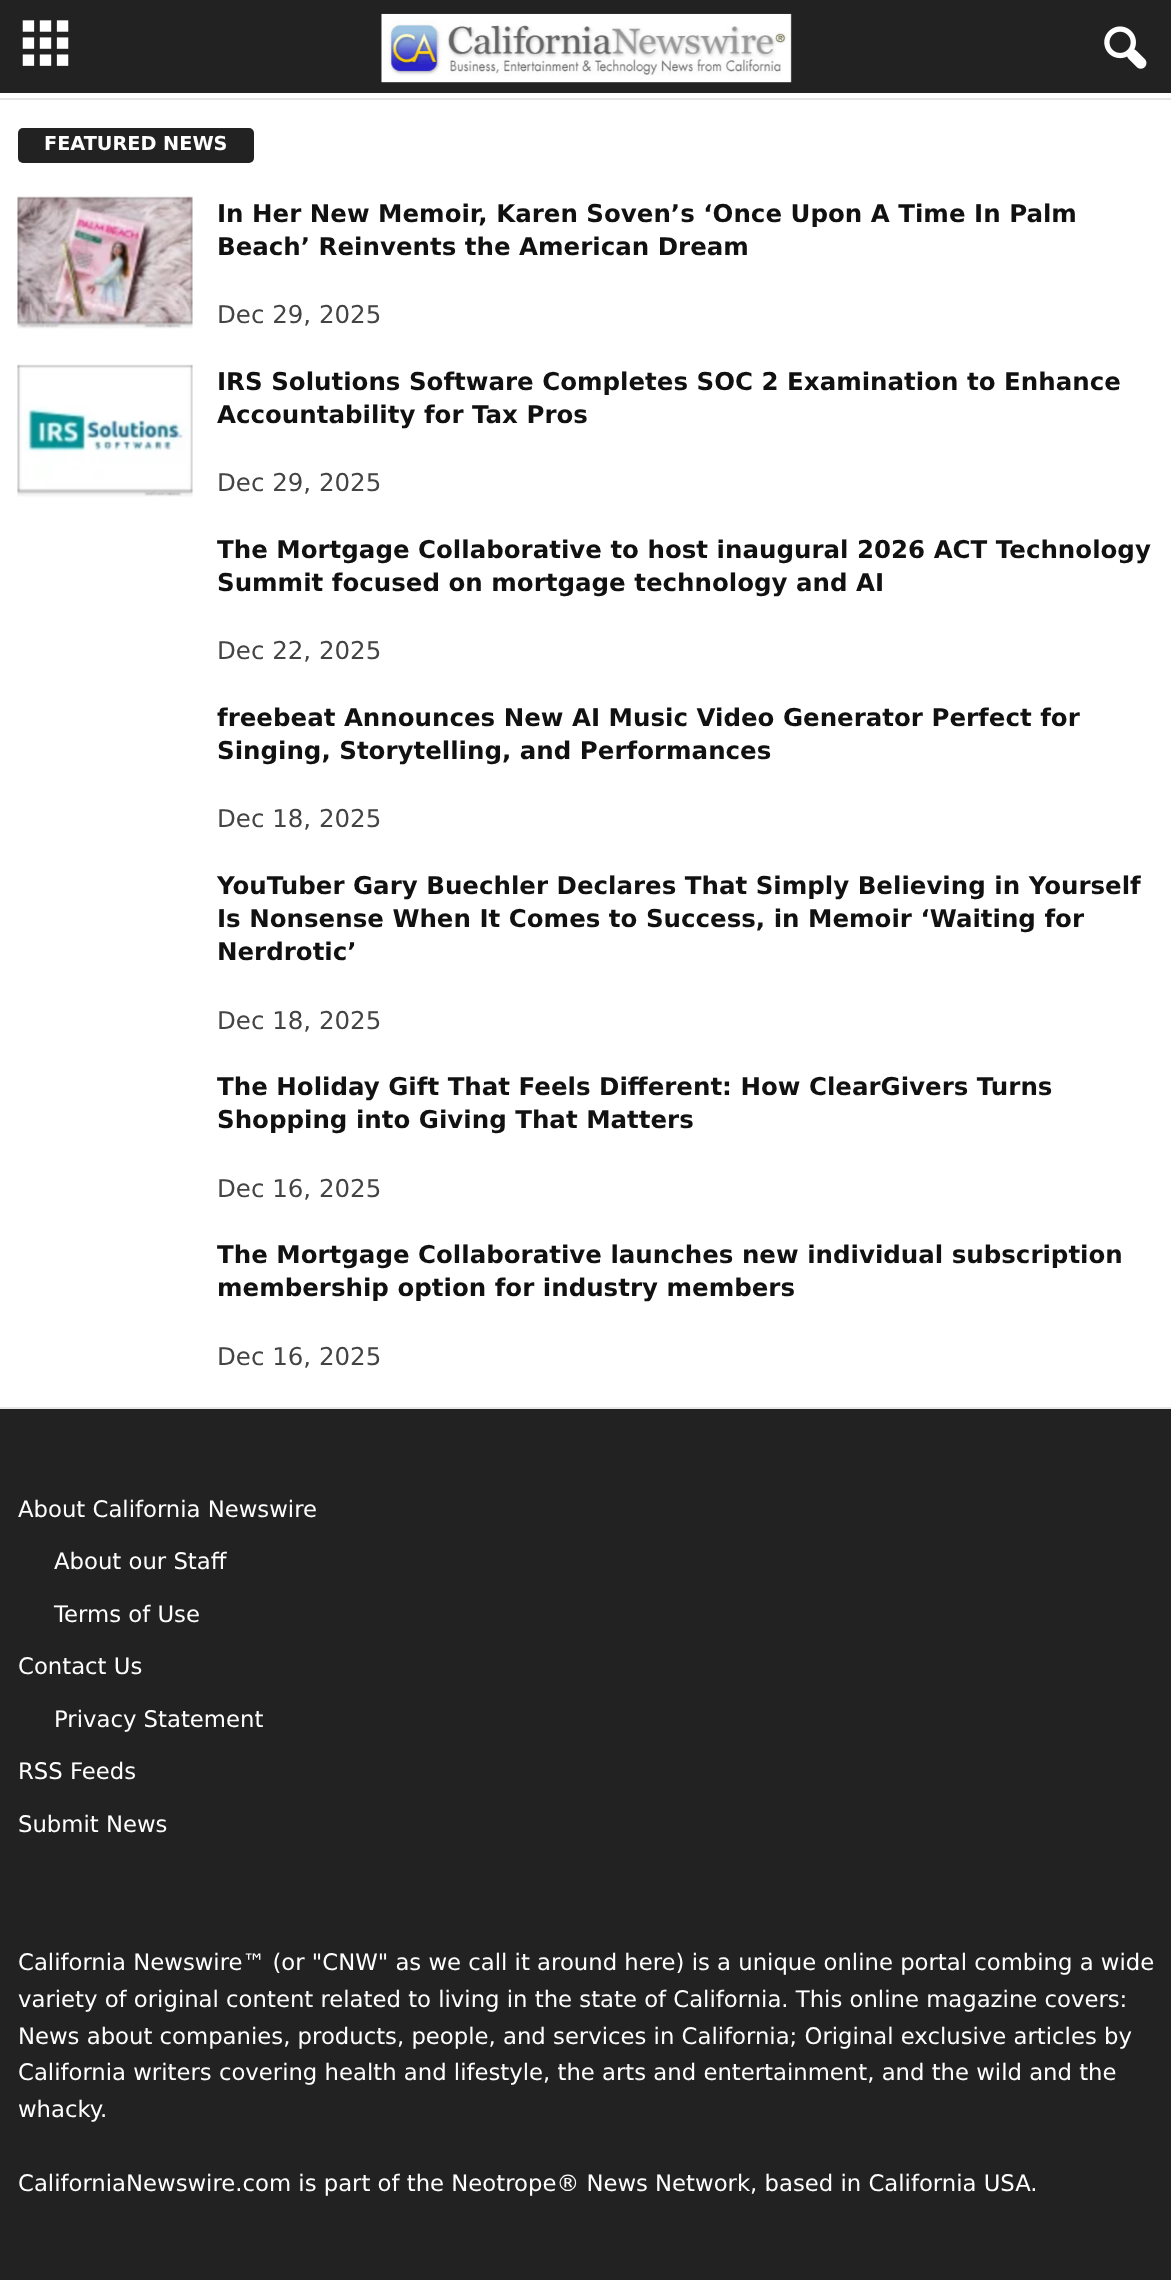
<svg xmlns="http://www.w3.org/2000/svg" xmlns:xlink="http://www.w3.org/1999/xlink" width="1171" height="2280" viewBox="0 0 1171 2280">
<style>
.cls-1{font:bold 19.25px DejaVu Sans;fill:#ffffff}
.cls-2{font:bold 24.5px DejaVu Sans;fill:#111111}
.cls-3{font:24.5px DejaVu Sans;fill:#444444}
.cls-4{font:22.75px DejaVu Sans;fill:#ffffff}
</style>
<rect width="100%" height="100%" fill="#ffffff"/>
<rect fill="#222222" x="0" y="0" width="1171" height="93"/>
<image xlink:href="image0.png" x="22" y="20" width="47" height="46"/>
<image xlink:href="image1.png" x="381" y="13" width="411" height="70"/>
<image xlink:href="image2.png" x="1104" y="26" width="43" height="43"/>
<rect fill="#e6e6e6" x="0" y="1407" width="1171" height="2"/>
<rect fill="#e6e6e6" x="0" y="98" width="1171" height="2"/>
<rect fill="#222222" x="18" y="128" width="236" height="35" rx="5"/>
<image xlink:href="image3.png" x="17" y="196" width="176" height="133"/>
<image xlink:href="image4.png" x="17" y="364" width="176" height="133"/>
<rect fill="#222222" x="0" y="1409" width="1171" height="871"/>
<text class="cls-1" x="44" y="150">FEATURED NEWS</text>
<text class="cls-2"><tspan x="217" y="222">In Her New Memoir, Karen Soven’s ‘Once Upon A Time In Palm</tspan><tspan x="217" y="255">Beach’ Reinvents the American Dream</tspan></text>
<text class="cls-3" x="217" y="323">Dec 29, 2025</text>
<text class="cls-2"><tspan x="217" y="390">IRS Solutions Software Completes SOC 2 Examination to Enhance</tspan><tspan x="217" y="423">Accountability for Tax Pros</tspan></text>
<text class="cls-3" x="217" y="491">Dec 29, 2025</text>
<text class="cls-2"><tspan x="217" y="558">The Mortgage Collaborative to host inaugural 2026 ACT Technology</tspan><tspan x="217" y="591">Summit focused on mortgage technology and AI</tspan></text>
<text class="cls-3" x="217" y="659">Dec 22, 2025</text>
<text class="cls-2"><tspan x="217" y="726">freebeat Announces New AI Music Video Generator Perfect for</tspan><tspan x="217" y="759">Singing, Storytelling, and Performances</tspan></text>
<text class="cls-3" x="217" y="827">Dec 18, 2025</text>
<text class="cls-2"><tspan x="217" y="894">YouTuber Gary Buechler Declares That Simply Believing in Yourself</tspan><tspan x="217" y="927">Is Nonsense When It Comes to Success, in Memoir ‘Waiting for</tspan><tspan x="217" y="960">Nerdrotic’</tspan></text>
<text class="cls-3" x="217" y="1029">Dec 18, 2025</text>
<text class="cls-2"><tspan x="217" y="1095">The Holiday Gift That Feels Different: How ClearGivers Turns</tspan><tspan x="217" y="1128">Shopping into Giving That Matters</tspan></text>
<text class="cls-3" x="217" y="1197">Dec 16, 2025</text>
<text class="cls-2"><tspan x="217" y="1263">The Mortgage Collaborative launches new individual subscription</tspan><tspan x="217" y="1296">membership option for industry members</tspan></text>
<text class="cls-3" x="217" y="1365">Dec 16, 2025</text>
<text class="cls-4" x="18" y="1517">About California Newswire</text>
<text class="cls-4" x="54" y="1569">About our Staff</text>
<text class="cls-4" x="54" y="1622">Terms of Use</text>
<text class="cls-4" x="18" y="1674">Contact Us</text>
<text class="cls-4" x="54" y="1727">Privacy Statement</text>
<text class="cls-4" x="18" y="1779">RSS Feeds</text>
<text class="cls-4" x="18" y="1832">Submit News</text>
<text class="cls-4"><tspan x="18" y="1970">California Newswire™ (or "CNW" as we call it around here) is a unique online portal combing a wide</tspan><tspan x="18" y="2007">variety of original content related to living in the state of California. This online magazine covers:</tspan><tspan x="18" y="2044">News about companies, products, people, and services in California; Original exclusive articles by</tspan><tspan x="18" y="2080">California writers covering health and lifestyle, the arts and entertainment, and the wild and the</tspan><tspan x="18" y="2117">whacky.</tspan></text>
<text class="cls-4" x="18" y="2191">CaliforniaNewswire.com is part of the Neotrope® News Network, based in California USA.</text>
</svg>
